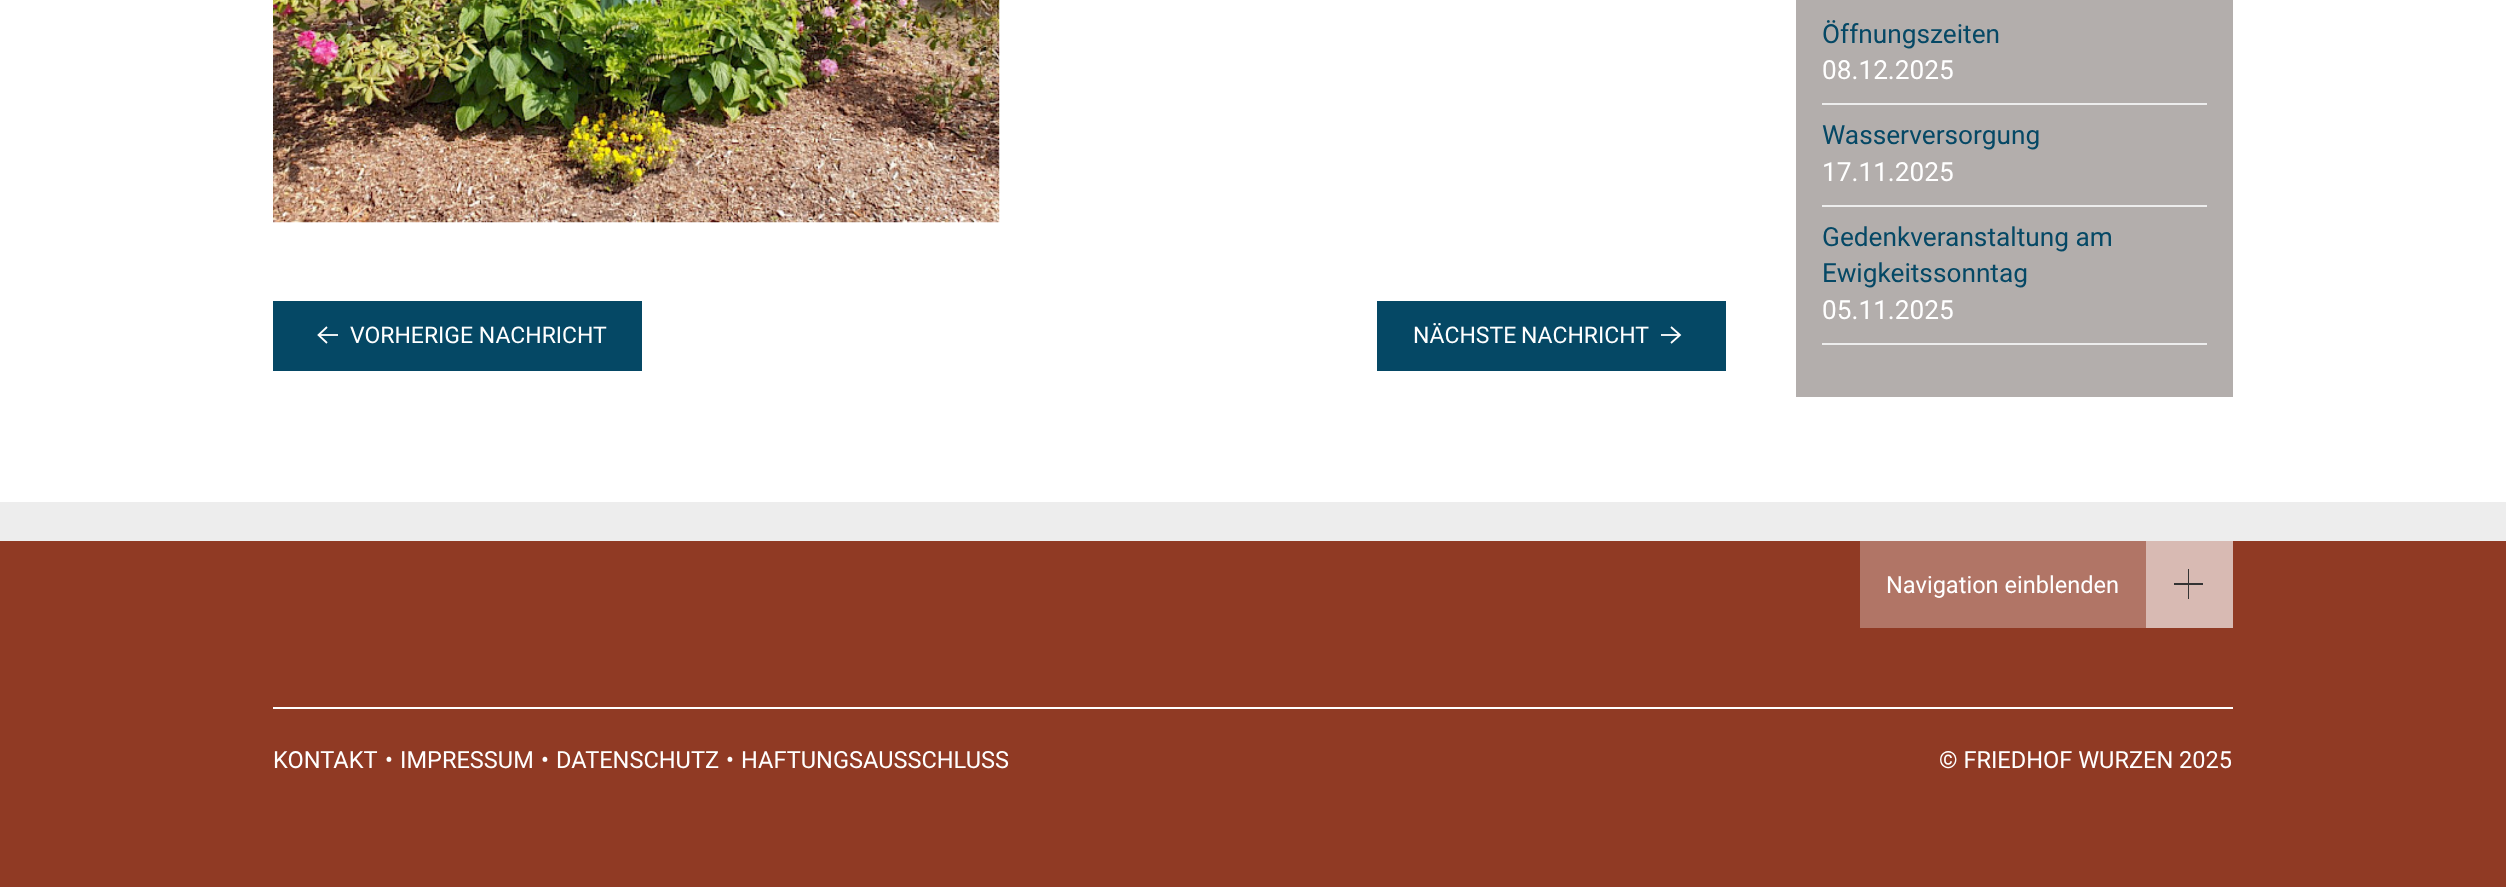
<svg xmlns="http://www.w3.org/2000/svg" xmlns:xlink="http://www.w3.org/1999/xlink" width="2506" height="887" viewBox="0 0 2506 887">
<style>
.cls-1{font:26.25px Roboto;fill:#054865}
.cls-2{font:26.25px Roboto;fill:#ffffff}
.cls-3{font:23px Roboto;fill:#ffffff}
.cls-4{font:23.6px Roboto;fill:#ffffff}
</style>
<rect width="100%" height="100%" fill="#ffffff"/>
<rect fill="#b3aeac" x="1796" y="0" width="437" height="397"/>
<rect fill="#ededed" x="1822" y="103" width="385" height="2"/>
<rect fill="#ededed" x="1822" y="205" width="385" height="2"/>
<rect fill="#ededed" x="1822" y="343" width="385" height="2"/>
<image xlink:href="image0.png" x="273" y="0" width="727" height="223"/>
<rect fill="#054865" x="273" y="301" width="369" height="70"/>
<path fill="none" stroke="#ffffff" stroke-width="1.8" d="M327 343L318.5 335L327 327"/>
<rect fill="#ffffff" fill-opacity="0.9" x="319" y="334" width="19" height="2"/>
<rect fill="#054865" x="1377" y="301" width="349" height="70"/>
<path fill="none" stroke="#ffffff" stroke-width="1.8" d="M1671 327L1680 335L1671 343"/>
<rect fill="#ffffff" fill-opacity="0.9" x="1661" y="334" width="19" height="2"/>
<rect fill="#903a24" x="0" y="541" width="2506" height="346"/>
<rect fill="#ededed" x="0" y="502" width="2506" height="39"/>
<rect fill="#b17566" x="1860" y="541" width="286" height="87"/>
<rect fill="#d8bab3" x="2146" y="541" width="87" height="87"/>
<rect fill="#333333" x="2188" y="569" width="1" height="30"/>
<rect fill="#333333" x="2174" y="583" width="29" height="2"/>
<rect fill="#ffffff" x="273" y="707" width="1960" height="2"/>
<text class="cls-1" x="1822" y="43">Öffnungszeiten</text>
<text class="cls-2" x="1822" y="79">08.12.2025</text>
<text class="cls-1" x="1822" y="144">Wasserversorgung</text>
<text class="cls-2" x="1822" y="181">17.11.2025</text>
<text class="cls-1"><tspan x="1822" y="246">Gedenkveranstaltung am</tspan><tspan x="1822" y="282">Ewigkeitssonntag</tspan></text>
<text class="cls-2" x="1822" y="319">05.11.2025</text>
<text class="cls-3" x="350" y="343">VORHERIGE NACHRICHT</text>
<text class="cls-3" x="1413" y="343" word-spacing="-1">NÄCHSTE NACHRICHT</text>
<text class="cls-4" x="1886" y="593">Navigation einblenden</text>
<text class="cls-4" x="273" y="768">KONTAKT</text>
<text class="cls-4" x="385" y="768">•</text>
<text class="cls-4" x="400" y="768">IMPRESSUM</text>
<text class="cls-4" x="541" y="768">•</text>
<text class="cls-4" x="556" y="768">DATENSCHUTZ</text>
<text class="cls-4" x="726" y="768">•</text>
<text class="cls-4" x="741" y="768">HAFTUNGSAUSSCHLUSS</text>
<text class="cls-4" x="1939" y="768">© FRIEDHOF WURZEN 2025</text>
</svg>
